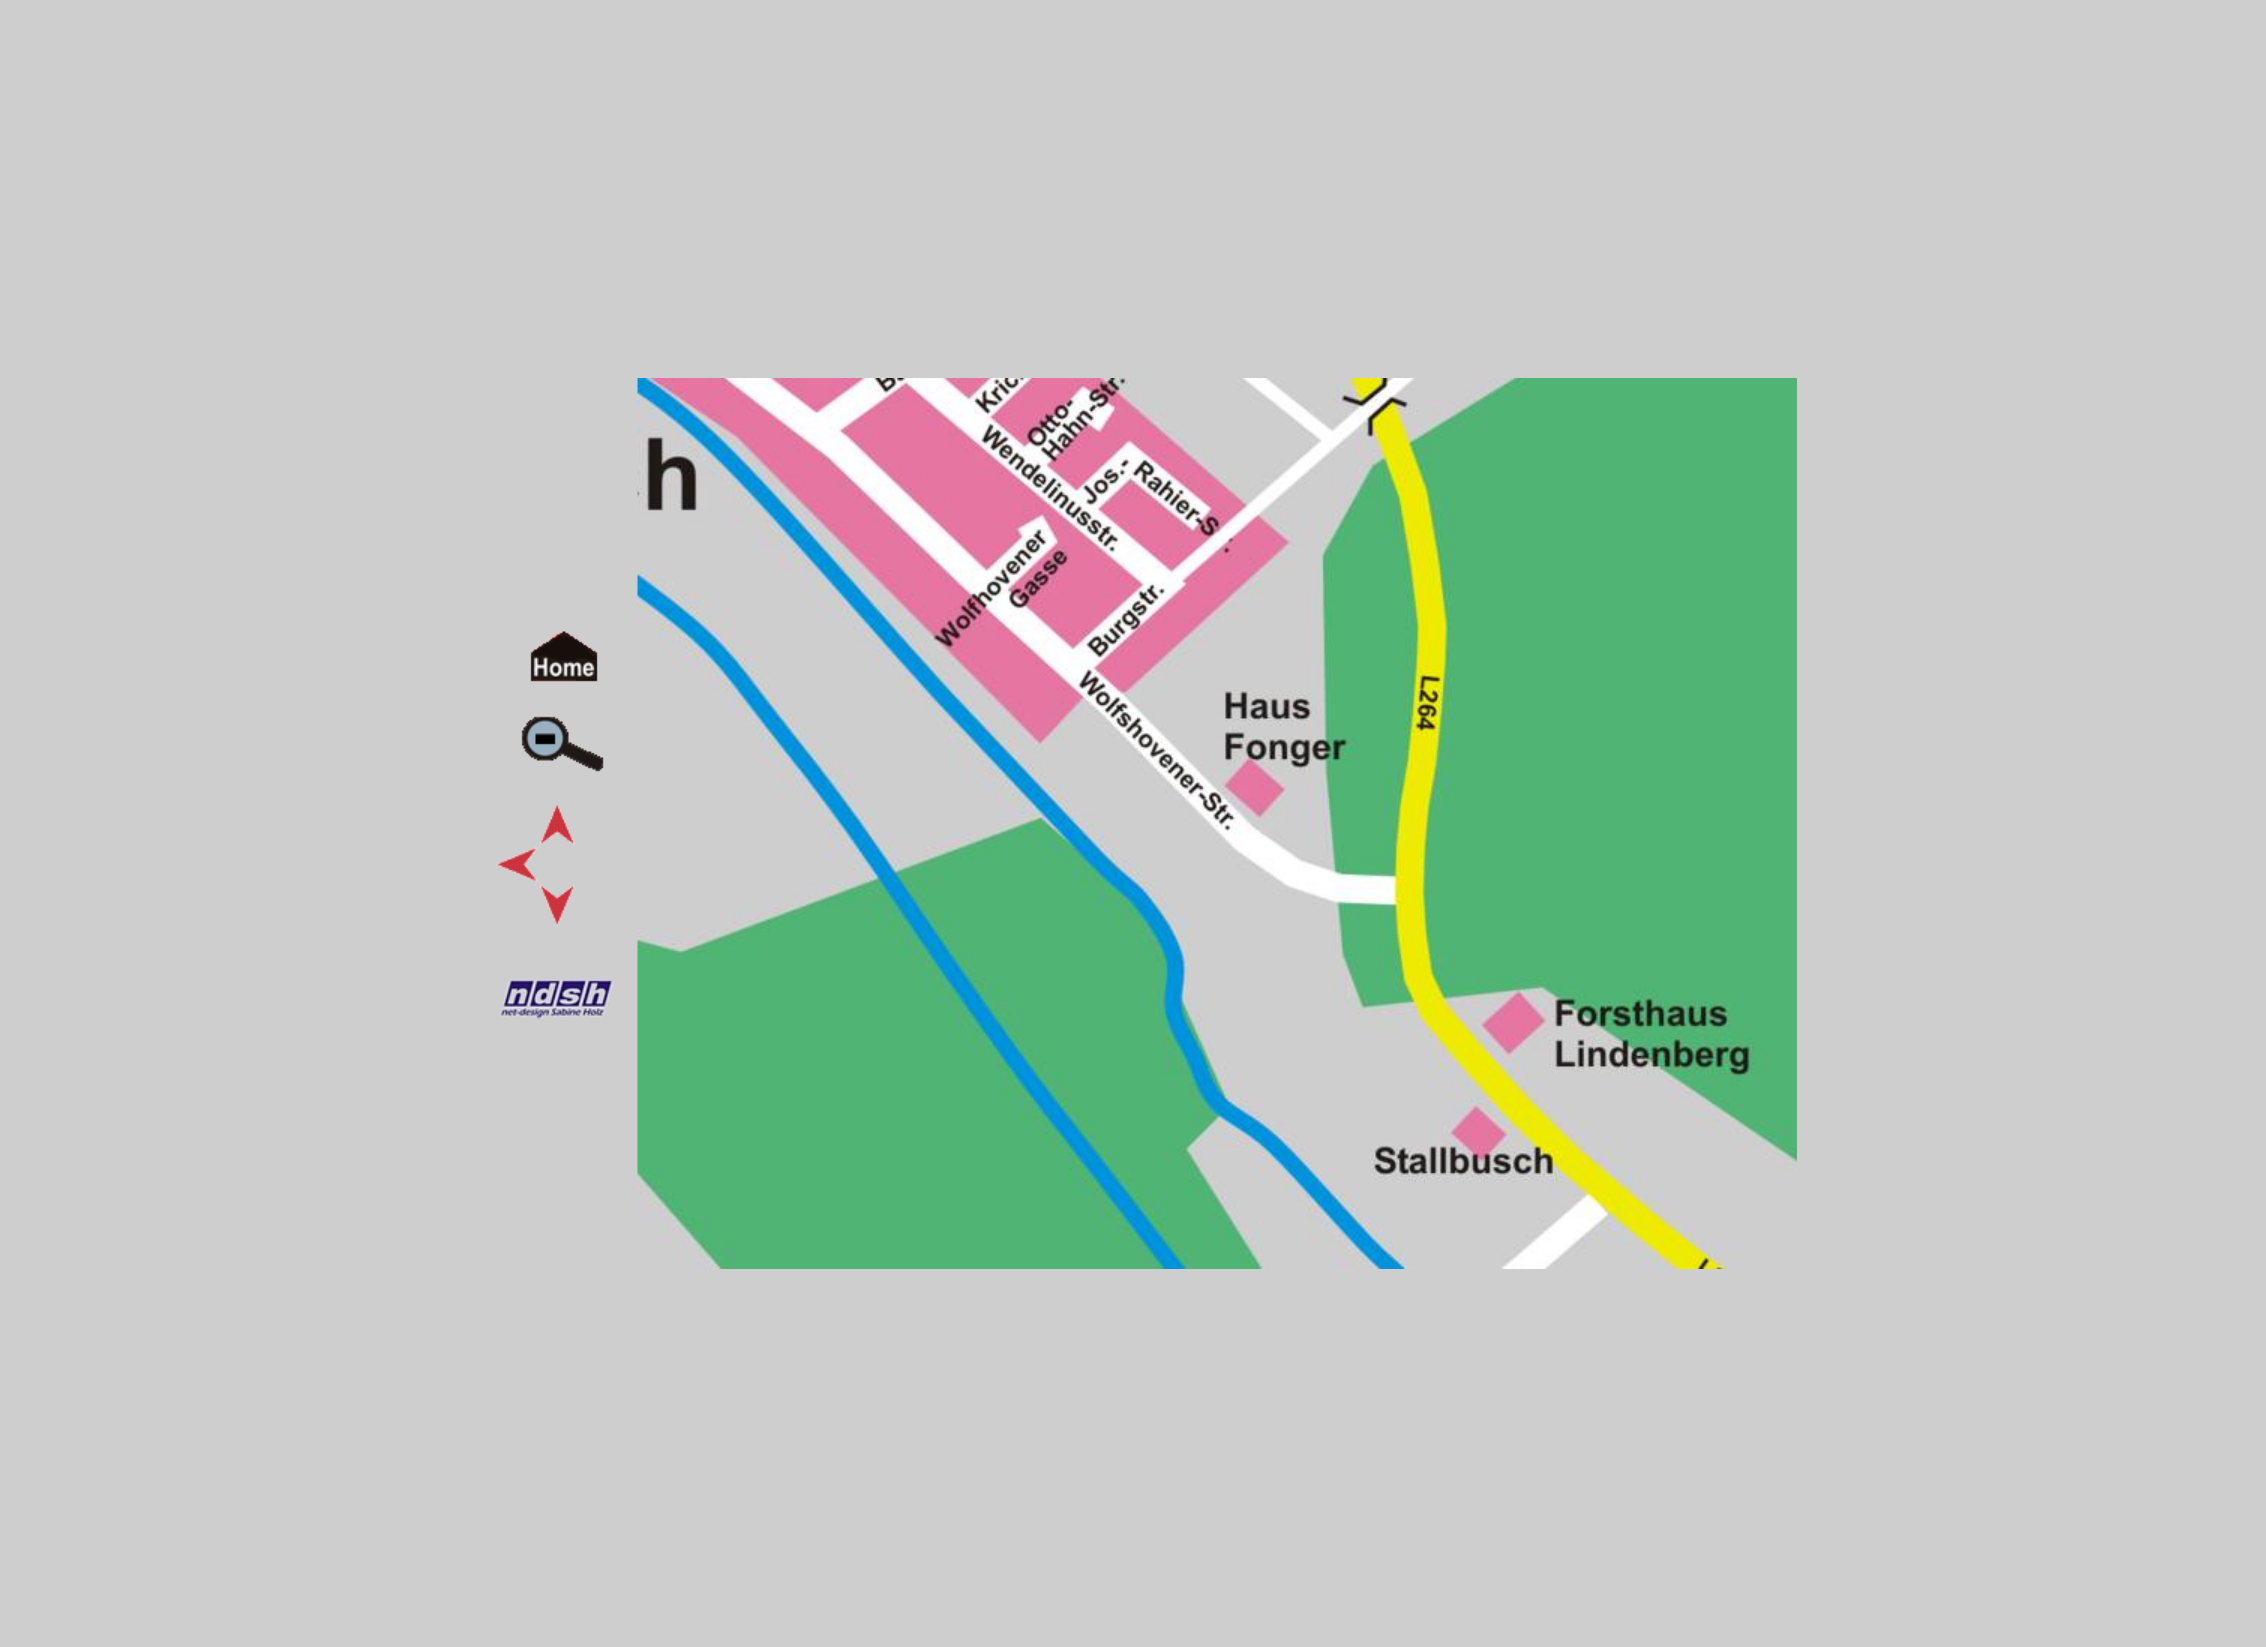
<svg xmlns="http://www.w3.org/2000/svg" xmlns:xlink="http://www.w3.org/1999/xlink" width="2266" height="1647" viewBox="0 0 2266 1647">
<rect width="100%" height="100%" fill="#cfcece"/>
<image xlink:href="image0.png" x="530" y="631" width="68" height="51"/>
<image xlink:href="image1.png" x="521" y="716" width="83" height="56"/>
<image xlink:href="image2.png" x="496" y="805" width="79" height="121"/>
<image xlink:href="image3.png" x="499" y="979" width="115" height="40"/>
<image xlink:href="image4.png" x="637" y="378" width="1160" height="891"/>
</svg>
